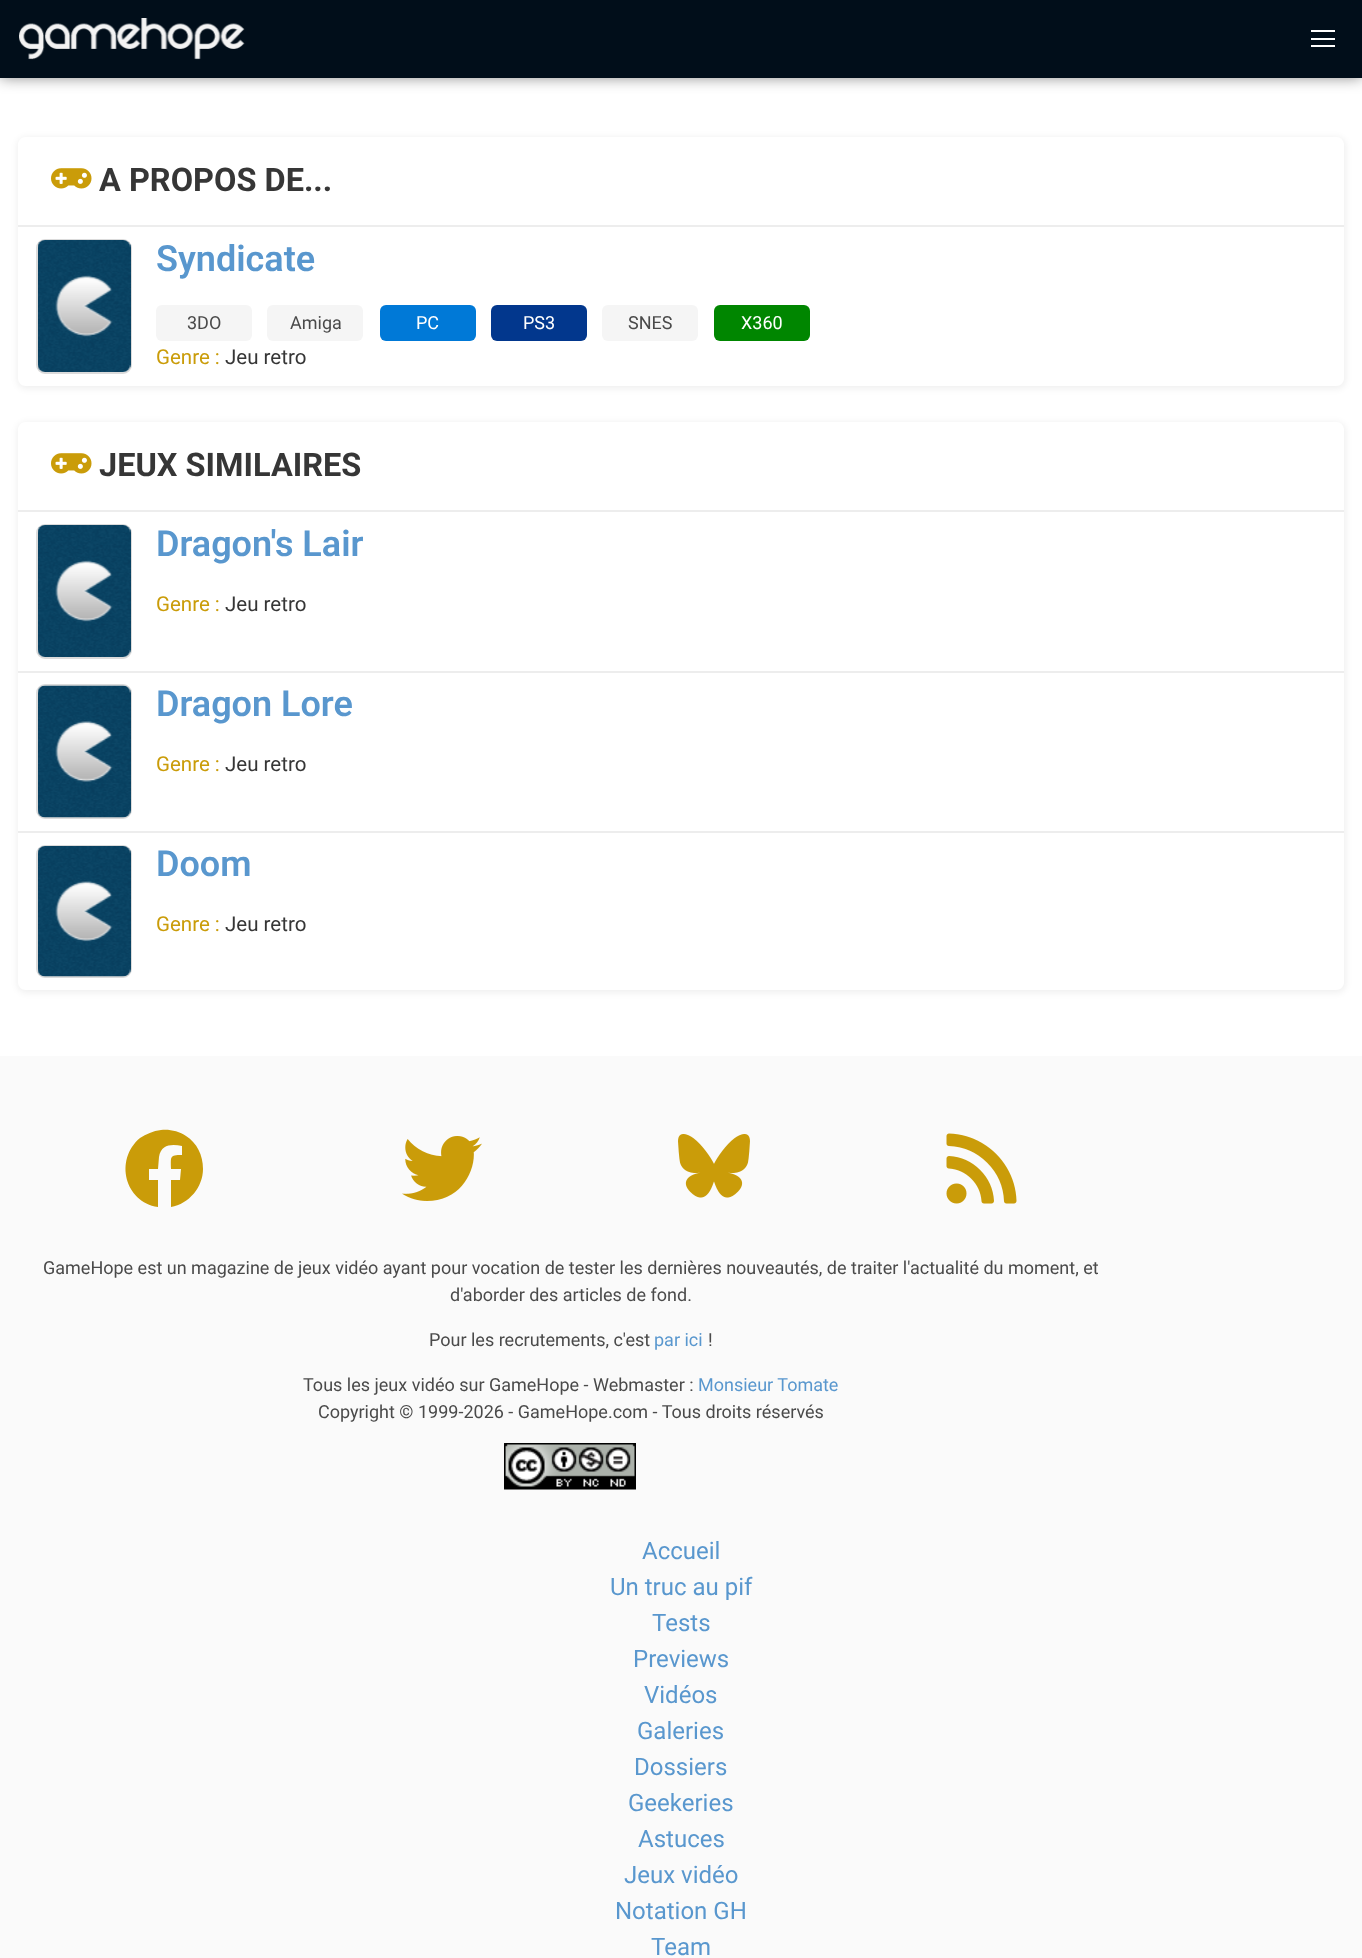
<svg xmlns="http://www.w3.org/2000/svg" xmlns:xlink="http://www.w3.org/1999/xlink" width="1362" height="1958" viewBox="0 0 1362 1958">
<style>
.cls-1{font:bold 32.5px Roboto;fill:#363636}
.cls-2{font:600 36px Roboto;fill:#5997ce}
.cls-3{font:18px Roboto;fill:#4a4a4a}
.cls-4{font:18px Roboto;fill:#ffffff}
.cls-5{font:20.5px Roboto;fill:#ca9c09}
.cls-6{font:20.5px Roboto;fill:#363636}
.cls-7{font:18px Roboto;fill:#5997ce}
.cls-8{font:24px Roboto;fill:#5997ce}
</style>
<defs>
<clipPath id="clip1"><path d="M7 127H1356V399H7ZM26 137H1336C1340.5 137 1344 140.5 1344 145V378C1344 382.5 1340.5 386 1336 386H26C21.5 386 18 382.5 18 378V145C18 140.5 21.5 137 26 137Z" clip-rule="evenodd"/></clipPath>
<clipPath id="clip2"><path d="M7 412H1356V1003H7ZM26 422H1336C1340.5 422 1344 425.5 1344 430V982C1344 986.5 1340.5 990 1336 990H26C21.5 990 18 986.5 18 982V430C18 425.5 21.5 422 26 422Z" clip-rule="evenodd"/></clipPath>
</defs>
<rect width="100%" height="100%" fill="#ffffff"/>
<rect fill="#000000" fill-opacity="0.5" filter="blur(7.5px)" x="0" y="-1" width="1362" height="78"/>
<rect fill="#010e1a" x="0" y="0" width="1362" height="78"/>
<image xlink:href="image0.png" x="19" y="18" width="226" height="42"/>
<rect fill="#ffffff" x="1311" y="30" width="24" height="2"/>
<rect fill="#ffffff" x="1311" y="38" width="24" height="2"/>
<rect fill="#ffffff" x="1311" y="45" width="24" height="2"/>
<g clip-path="url(#clip1)">
<rect fill="#000000" fill-opacity="0.06" filter="blur(3px)" x="17" y="137" width="1329" height="252" rx="9"/>
</g>
<rect fill="#ededed" x="18" y="225" width="1326" height="2"/>
<image xlink:href="image1.png" x="51" y="168" width="41" height="21"/>
<rect fill="none" stroke="#dbdbdb" stroke-width="2" x="37" y="240" width="94" height="133" rx="8"/>
<image xlink:href="image2.png" x="38" y="240" width="93" height="132"/>
<rect fill="#f5f5f5" x="156" y="305" width="96" height="36" rx="6"/>
<rect fill="#f5f5f5" x="267" y="305" width="96" height="36" rx="6"/>
<rect fill="#0079d7" x="380" y="305" width="96" height="36" rx="6"/>
<rect fill="#02378d" x="491" y="305" width="96" height="36" rx="6"/>
<rect fill="#f5f5f5" x="602" y="305" width="96" height="36" rx="6"/>
<rect fill="#008600" x="714" y="305" width="96" height="36" rx="6"/>
<g clip-path="url(#clip2)">
<rect fill="#000000" fill-opacity="0.06" filter="blur(3px)" x="17" y="422" width="1329" height="571" rx="9"/>
</g>
<rect fill="#ededed" x="18" y="510" width="1326" height="2"/>
<image xlink:href="image1.png" x="51" y="453" width="41" height="21"/>
<rect fill="#ededed" x="18" y="671" width="1326" height="2"/>
<rect fill="none" stroke="#dbdbdb" stroke-width="2" x="37" y="525" width="94" height="133" rx="8"/>
<image xlink:href="image2.png" x="38" y="525" width="93" height="132"/>
<rect fill="#ededed" x="18" y="831" width="1326" height="2"/>
<rect fill="none" stroke="#dbdbdb" stroke-width="2" x="37" y="685" width="94" height="133" rx="8"/>
<image xlink:href="image3.png" x="38" y="685" width="93" height="133"/>
<rect fill="none" stroke="#dbdbdb" stroke-width="2" x="37" y="846" width="94" height="131" rx="8"/>
<image xlink:href="image4.png" x="38" y="846" width="93" height="131"/>
<rect fill="#fafafa" x="0" y="1056" width="1362" height="902"/>
<path fill="#ca9c09" d="M203 1169C203 1187 189 1204 171 1207V1180H180L181 1169H171C171 1157 169 1155 182 1155V1146C172 1144 161 1144 159 1157L158 1169H149V1180H158V1207C125 1202 114 1160 140 1138C146 1134 153 1131 161 1130C169 1129 179 1131 186 1136C197 1143 203 1155 203 1169Z"/>
<image xlink:href="image5.png" x="402" y="1136" width="80" height="65"/>
<image xlink:href="image6.png" x="678" y="1134" width="72" height="64"/>
<image xlink:href="image7.png" x="946" y="1133" width="71" height="71"/>
<image xlink:href="image8.png" x="504" y="1443" width="132" height="47"/>
<text class="cls-1" x="99" y="191">A PROPOS DE...</text>
<text class="cls-2" x="156" y="271">Syndicate</text>
<text class="cls-3" x="187" y="329">3DO</text>
<text class="cls-3" x="290" y="329">Amiga</text>
<text class="cls-4" x="416" y="329">PC</text>
<text class="cls-4" x="523" y="329">PS3</text>
<text class="cls-3" x="628" y="329">SNES</text>
<text class="cls-4" x="741" y="329">X360</text>
<text class="cls-5" x="156" y="364">Genre :</text>
<text class="cls-6" x="225" y="364">Jeu retro</text>
<text class="cls-1" x="99" y="476">JEUX SIMILAIRES</text>
<text class="cls-2" x="156" y="556">Dragon's Lair</text>
<text class="cls-5" x="156" y="611">Genre :</text>
<text class="cls-6" x="225" y="611">Jeu retro</text>
<text class="cls-2" x="156" y="716">Dragon Lore</text>
<text class="cls-5" x="156" y="771">Genre :</text>
<text class="cls-6" x="225" y="771">Jeu retro</text>
<text class="cls-2" x="156" y="876">Doom</text>
<text class="cls-5" x="156" y="931">Genre :</text>
<text class="cls-6" x="225" y="931">Jeu retro</text>
<text class="cls-3" x="43" y="1274">GameHope est un magazine de jeux vidéo ayant pour vocation de tester les dernières nouveautés, de traiter l'actualité du moment, et</text>
<text class="cls-3" x="450" y="1301">d'aborder des articles de fond.</text>
<text class="cls-3" x="429" y="1346">Pour les recrutements, c'est</text>
<text class="cls-7" x="654" y="1346">par ici</text>
<text class="cls-3" x="708" y="1346">!</text>
<text class="cls-3" x="303" y="1391">Tous les jeux vidéo sur GameHope - Webmaster :</text>
<text class="cls-7" x="698" y="1391">Monsieur Tomate</text>
<text class="cls-3" x="318" y="1418">Copyright © 1999-2026 - GameHope.com - Tous droits réservés</text>
<text class="cls-8" x="642" y="1559">Accueil</text>
<text class="cls-8" x="610" y="1595">Un truc au pif</text>
<text class="cls-8" x="652" y="1631">Tests</text>
<text class="cls-8" x="633" y="1667">Previews</text>
<text class="cls-8" x="644" y="1703">Vidéos</text>
<text class="cls-8" x="637" y="1739">Galeries</text>
<text class="cls-8" x="634" y="1775">Dossiers</text>
<text class="cls-8" x="628" y="1811">Geekeries</text>
<text class="cls-8" x="638" y="1847">Astuces</text>
<text class="cls-8" x="624" y="1883">Jeux vidéo</text>
<text class="cls-8" x="615" y="1919">Notation GH</text>
<text class="cls-8" x="651" y="1955">Team</text>
</svg>
